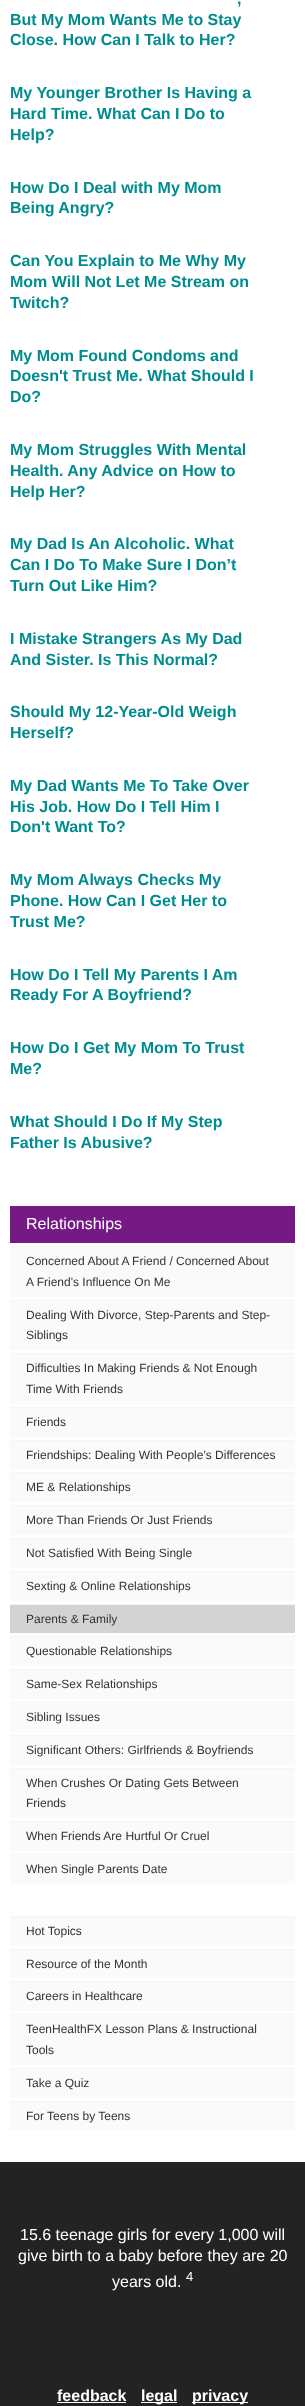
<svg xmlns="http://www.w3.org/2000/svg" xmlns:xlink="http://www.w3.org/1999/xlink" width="305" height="2406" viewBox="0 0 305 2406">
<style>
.cls-1{font:bold 16px Liberation Sans;fill:#018c8f}
.cls-2{font:16px Liberation Sans;fill:#ffffff}
.cls-3{font:12px Liberation Sans;fill:#333333}
.cls-4{font:13px Liberation Sans;fill:#ffffff}
.cls-5{font:bold 16px Liberation Sans;fill:#ffffff}
</style>
<rect width="100%" height="100%" fill="#ffffff"/>
<rect fill="#751a84" x="10" y="1206" width="285" height="37"/>
<rect fill="#fafafa" x="10" y="1247" width="285" height="50"/>
<rect fill="#f5f5f5" x="10" y="1246" width="285" height="1"/>
<rect fill="#fafafa" x="10" y="1301" width="285" height="49"/>
<rect fill="#f5f5f5" x="10" y="1300" width="285" height="1"/>
<rect fill="#fafafa" x="10" y="1354" width="285" height="50"/>
<rect fill="#f5f5f5" x="10" y="1353" width="285" height="1"/>
<rect fill="#fafafa" x="10" y="1408" width="285" height="29"/>
<rect fill="#f5f5f5" x="10" y="1407" width="285" height="1"/>
<rect fill="#fafafa" x="10" y="1441" width="285" height="28"/>
<rect fill="#f5f5f5" x="10" y="1440" width="285" height="1"/>
<rect fill="#fafafa" x="10" y="1473" width="285" height="29"/>
<rect fill="#f5f5f5" x="10" y="1472" width="285" height="1"/>
<rect fill="#fafafa" x="10" y="1506" width="285" height="29"/>
<rect fill="#f5f5f5" x="10" y="1505" width="285" height="1"/>
<rect fill="#fafafa" x="10" y="1539" width="285" height="29"/>
<rect fill="#f5f5f5" x="10" y="1538" width="285" height="1"/>
<rect fill="#fafafa" x="10" y="1572" width="285" height="29"/>
<rect fill="#f5f5f5" x="10" y="1571" width="285" height="1"/>
<rect fill="#d3d3d3" x="10" y="1605" width="285" height="28"/>
<rect fill="#f5f5f5" x="10" y="1604" width="285" height="1"/>
<rect fill="#fafafa" x="10" y="1637" width="285" height="29"/>
<rect fill="#f5f5f5" x="10" y="1636" width="285" height="1"/>
<rect fill="#fafafa" x="10" y="1670" width="285" height="29"/>
<rect fill="#f5f5f5" x="10" y="1669" width="285" height="1"/>
<rect fill="#fafafa" x="10" y="1703" width="285" height="29"/>
<rect fill="#f5f5f5" x="10" y="1702" width="285" height="1"/>
<rect fill="#fafafa" x="10" y="1736" width="285" height="29"/>
<rect fill="#f5f5f5" x="10" y="1735" width="285" height="1"/>
<rect fill="#fafafa" x="10" y="1769" width="285" height="49"/>
<rect fill="#f5f5f5" x="10" y="1768" width="285" height="1"/>
<rect fill="#fafafa" x="10" y="1822" width="285" height="29"/>
<rect fill="#f5f5f5" x="10" y="1821" width="285" height="1"/>
<rect fill="#fafafa" x="10" y="1855" width="285" height="29"/>
<rect fill="#f5f5f5" x="10" y="1854" width="285" height="1"/>
<rect fill="#fafafa" x="10" y="1917" width="285" height="29"/>
<rect fill="#f5f5f5" x="10" y="1916" width="285" height="1"/>
<rect fill="#fafafa" x="10" y="1950" width="285" height="28"/>
<rect fill="#f5f5f5" x="10" y="1949" width="285" height="1"/>
<rect fill="#fafafa" x="10" y="1982" width="285" height="29"/>
<rect fill="#f5f5f5" x="10" y="1981" width="285" height="1"/>
<rect fill="#fafafa" x="10" y="2015" width="285" height="50"/>
<rect fill="#f5f5f5" x="10" y="2014" width="285" height="1"/>
<rect fill="#fafafa" x="10" y="2069" width="285" height="29"/>
<rect fill="#f5f5f5" x="10" y="2068" width="285" height="1"/>
<rect fill="#fafafa" x="10" y="2102" width="285" height="28"/>
<rect fill="#f5f5f5" x="10" y="2101" width="285" height="1"/>
<rect fill="#232323" x="0" y="2162" width="305" height="244"/>
<rect fill="#ffffff" x="57" y="2402" width="69" height="1"/>
<rect fill="#ffffff" x="141" y="2402" width="36" height="1"/>
<rect fill="#ffffff" x="192" y="2402" width="56" height="1"/>
<text class="cls-1" x="237" y="4">,</text>
<text class="cls-1"><tspan x="10" y="25">But My Mom Wants Me to Stay</tspan><tspan x="10" y="45">Close. How Can I Talk to Her?</tspan></text>
<text class="cls-1"><tspan x="10" y="98">My Younger Brother Is Having a</tspan><tspan x="10" y="119">Hard Time. What Can I Do to</tspan><tspan x="10" y="140">Help?</tspan></text>
<text class="cls-1"><tspan x="10" y="193">How Do I Deal with My Mom</tspan><tspan x="10" y="213">Being Angry?</tspan></text>
<text class="cls-1"><tspan x="10" y="266">Can You Explain to Me Why My</tspan><tspan x="10" y="287">Mom Will Not Let Me Stream on</tspan><tspan x="10" y="308">Twitch?</tspan></text>
<text class="cls-1"><tspan x="10" y="361">My Mom Found Condoms and</tspan><tspan x="10" y="381">Doesn't Trust Me. What Should I</tspan><tspan x="10" y="402">Do?</tspan></text>
<text class="cls-1"><tspan x="10" y="455">My Mom Struggles With Mental</tspan><tspan x="10" y="476">Health. Any Advice on How to</tspan><tspan x="10" y="497">Help Her?</tspan></text>
<text class="cls-1"><tspan x="10" y="549">My Dad Is An Alcoholic. What</tspan><tspan x="10" y="570">Can I Do To Make Sure I Don’t</tspan><tspan x="10" y="591">Turn Out Like Him?</tspan></text>
<text class="cls-1"><tspan x="10" y="644">I Mistake Strangers As My Dad</tspan><tspan x="10" y="665">And Sister. Is This Normal?</tspan></text>
<text class="cls-1"><tspan x="10" y="717">Should My 12-Year-Old Weigh</tspan><tspan x="10" y="738">Herself?</tspan></text>
<text class="cls-1"><tspan x="10" y="791">My Dad Wants Me To Take Over</tspan><tspan x="10" y="812">His Job. How Do I Tell Him I</tspan><tspan x="10" y="832">Don't Want To?</tspan></text>
<text class="cls-1"><tspan x="10" y="885">My Mom Always Checks My</tspan><tspan x="10" y="906">Phone. How Can I Get Her to</tspan><tspan x="10" y="927">Trust Me?</tspan></text>
<text class="cls-1"><tspan x="10" y="980">How Do I Tell My Parents I Am</tspan><tspan x="10" y="1000">Ready For A Boyfriend?</tspan></text>
<text class="cls-1"><tspan x="10" y="1053">How Do I Get My Mom To Trust</tspan><tspan x="10" y="1074">Me?</tspan></text>
<text class="cls-1"><tspan x="10" y="1127">What Should I Do If My Step</tspan><tspan x="10" y="1148">Father Is Abusive?</tspan></text>
<text class="cls-2" x="26" y="1229">Relationships</text>
<text class="cls-3"><tspan x="26" y="1265">Concerned About A Friend / Concerned About</tspan><tspan x="26" y="1286">A Friend's Influence On Me</tspan></text>
<text class="cls-3"><tspan x="26" y="1319">Dealing With Divorce, Step-Parents and Step-</tspan><tspan x="26" y="1339">Siblings</tspan></text>
<text class="cls-3"><tspan x="26" y="1372">Difficulties In Making Friends &amp; Not Enough</tspan><tspan x="26" y="1393">Time With Friends</tspan></text>
<text class="cls-3" x="26" y="1426">Friends</text>
<text class="cls-3" x="26" y="1459">Friendships: Dealing With People's Differences</text>
<text class="cls-3" x="26" y="1491">ME &amp; Relationships</text>
<text class="cls-3" x="26" y="1524">More Than Friends Or Just Friends</text>
<text class="cls-3" x="26" y="1557">Not Satisfied With Being Single</text>
<text class="cls-3" x="26" y="1590">Sexting &amp; Online Relationships</text>
<text class="cls-3" x="26" y="1623">Parents &amp; Family</text>
<text class="cls-3" x="26" y="1655">Questionable Relationships</text>
<text class="cls-3" x="26" y="1688">Same-Sex Relationships</text>
<text class="cls-3" x="26" y="1721">Sibling Issues</text>
<text class="cls-3" x="26" y="1754">Significant Others: Girlfriends &amp; Boyfriends</text>
<text class="cls-3"><tspan x="26" y="1787">When Crushes Or Dating Gets Between</tspan><tspan x="26" y="1807">Friends</tspan></text>
<text class="cls-3" x="26" y="1840">When Friends Are Hurtful Or Cruel</text>
<text class="cls-3" x="26" y="1873">When Single Parents Date</text>
<text class="cls-3" x="26" y="1935">Hot Topics</text>
<text class="cls-3" x="26" y="1968">Resource of the Month</text>
<text class="cls-3" x="26" y="2000">Careers in Healthcare</text>
<text class="cls-3"><tspan x="26" y="2033">TeenHealthFX Lesson Plans &amp; Instructional</tspan><tspan x="26" y="2054">Tools</tspan></text>
<text class="cls-3" x="26" y="2087">Take a Quiz</text>
<text class="cls-3" x="26" y="2120">For Teens by Teens</text>
<text class="cls-2" x="20" y="2240">15.6 teenage girls for every 1,000 will</text>
<text class="cls-2" x="18" y="2261">give birth to a baby before they are 20</text>
<text class="cls-2" x="112" y="2287">years old.</text>
<text class="cls-4" x="186" y="2281">4</text>
<text class="cls-5" x="57" y="2401">feedback</text>
<text class="cls-5" x="141" y="2401">legal</text>
<text class="cls-5" x="192" y="2401">privacy</text>
</svg>
